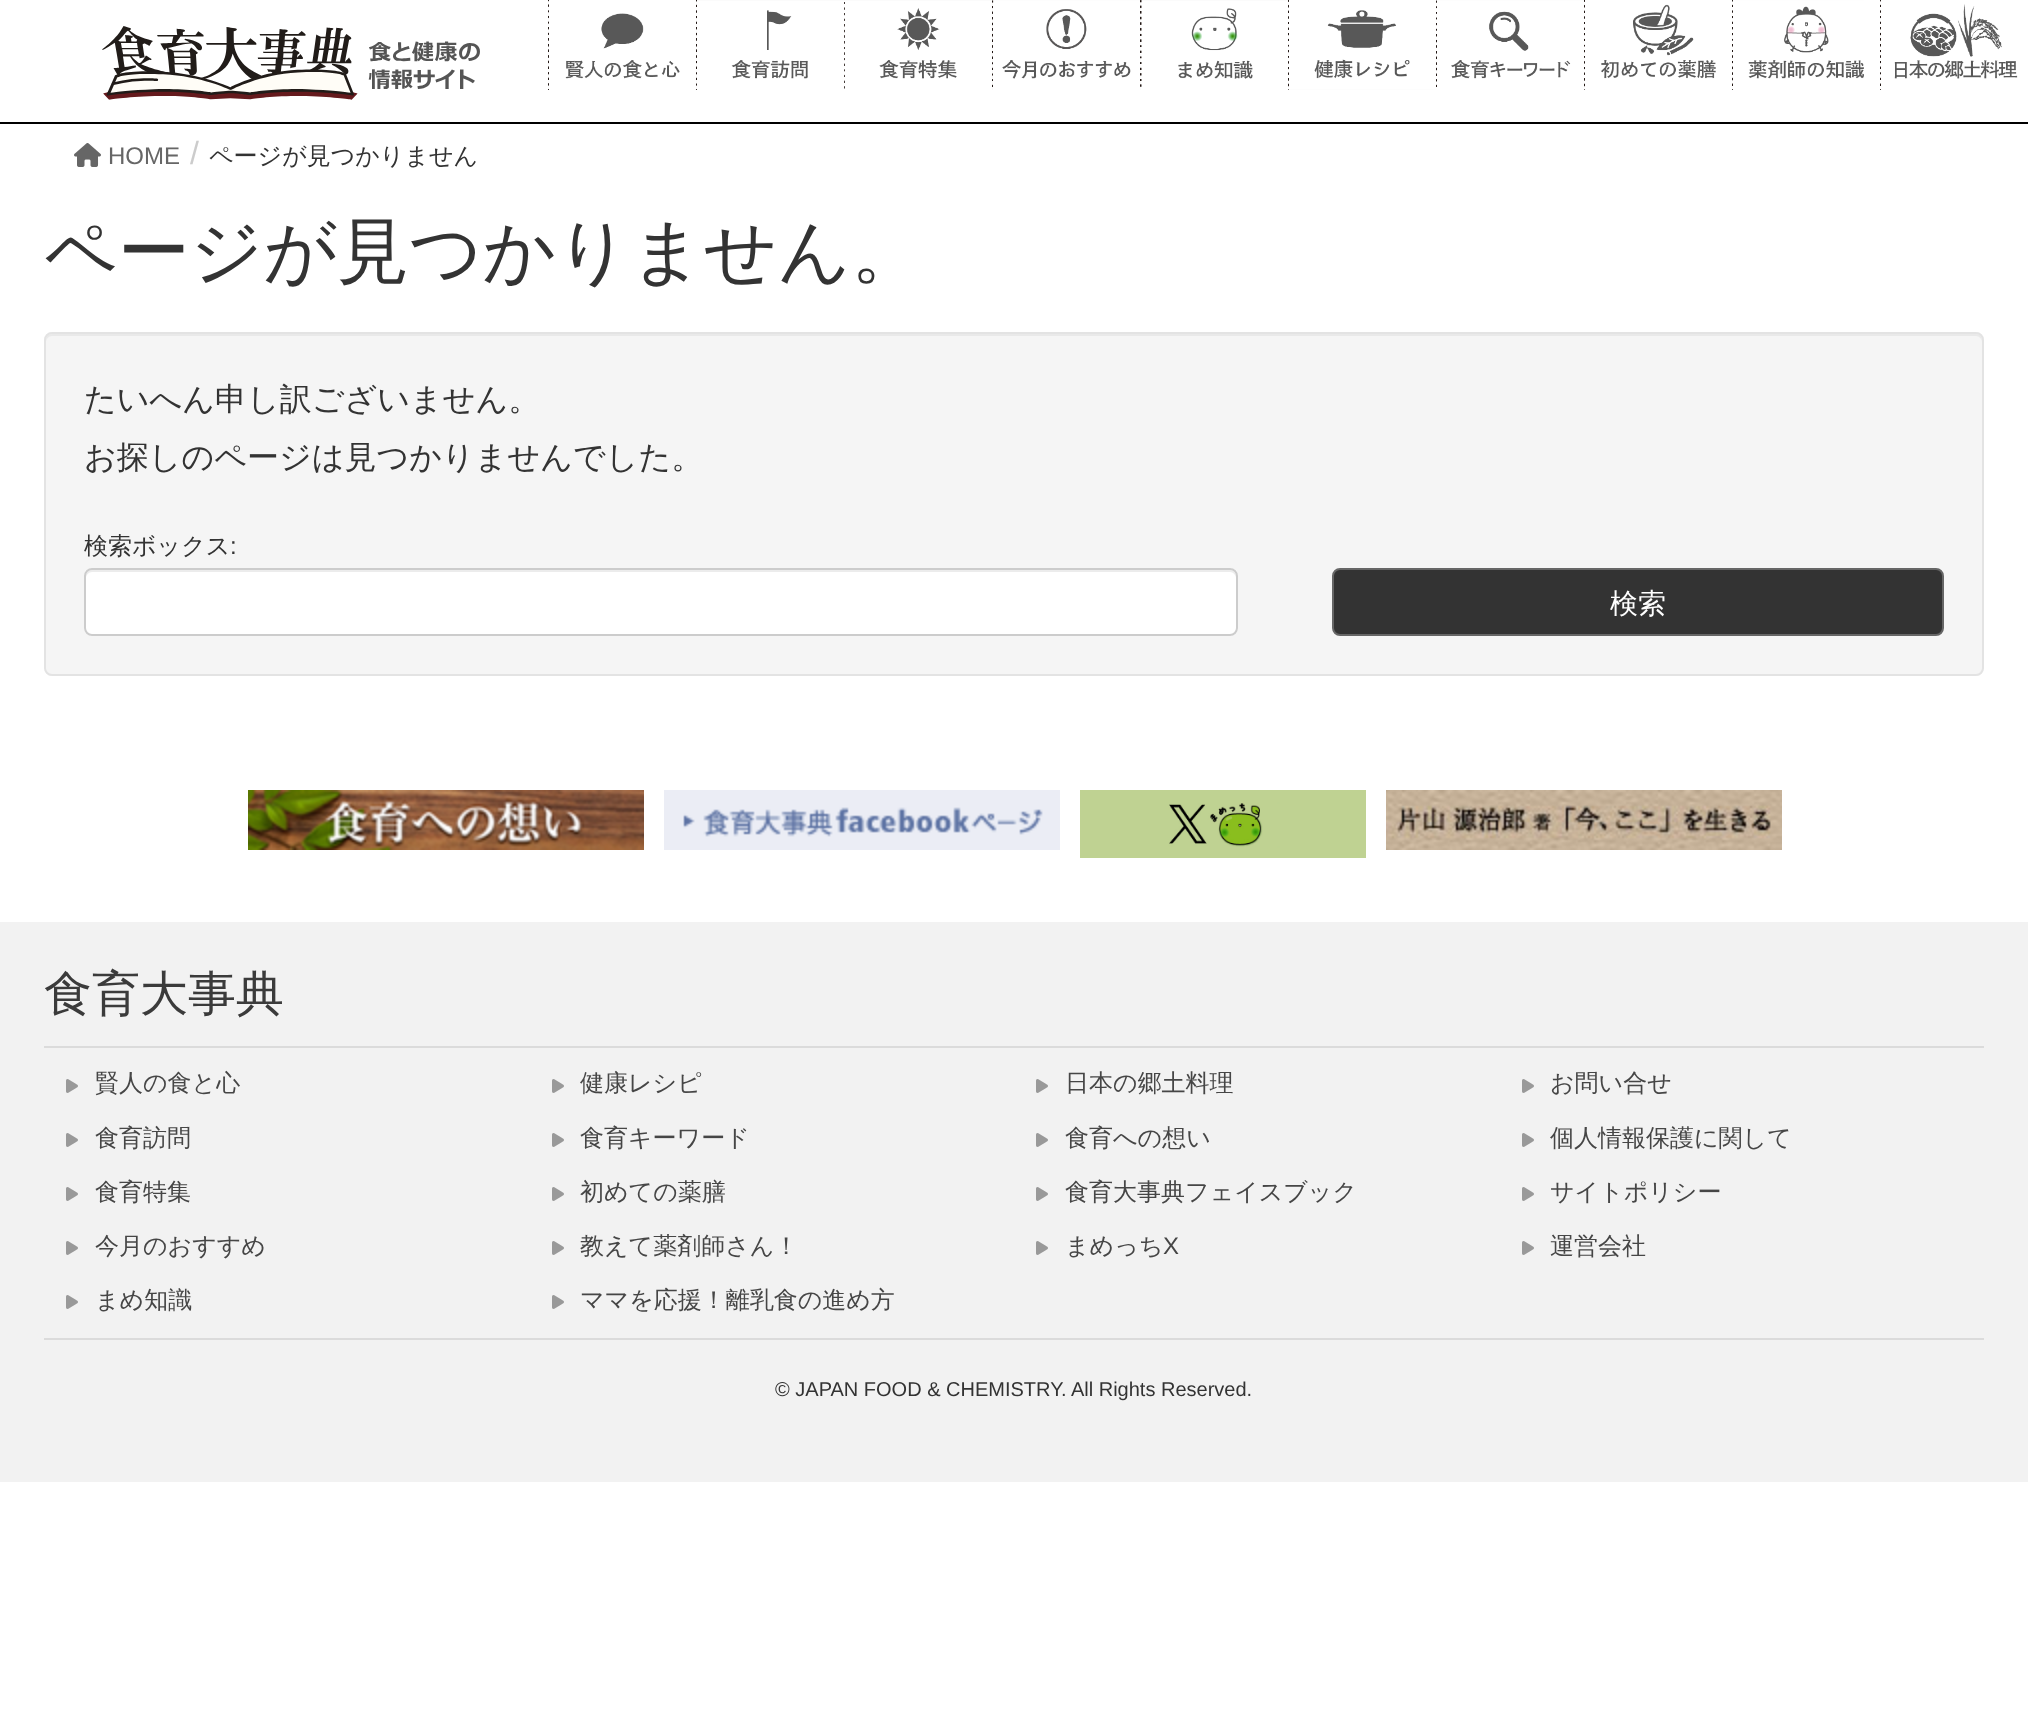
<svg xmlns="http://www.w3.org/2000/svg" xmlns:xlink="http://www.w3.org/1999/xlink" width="2028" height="1721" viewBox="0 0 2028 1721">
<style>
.cls-1{font:24px Liberation Sans;fill:#666666}
.cls-2{font:32px Liberation Sans;fill:#cccccc}
.cls-3{font:500 24px WenQuanYi Zen Hei;fill:#333333}
.cls-4{font:500 72px WenQuanYi Zen Hei;fill:#333333}
.cls-5{font:500 32px WenQuanYi Zen Hei;fill:#333333}
.cls-6{font:24px Liberation Sans;fill:#333333}
.cls-7{font:500 28px WenQuanYi Zen Hei;fill:#ffffff}
.cls-8{font:500 48px WenQuanYi Zen Hei;fill:#3b3b3b}
.cls-9{font:500 24px WenQuanYi Zen Hei;fill:#464646}
.cls-10{font:24px Liberation Sans;fill:#464646}
.cls-11{font:20px Liberation Sans;fill:#333333}
</style>
<rect width="100%" height="100%" fill="#ffffff"/>
<rect fill="#000000" x="0" y="122" width="2028" height="2"/>
<image xlink:href="image0.png" x="102" y="26" width="378" height="74"/>
<image xlink:href="image1.png" x="548" y="1" width="1" height="89"/>
<image xlink:href="image2.png" x="548" y="0" width="148" height="90"/>
<image xlink:href="image3.png" x="696" y="0" width="148" height="90"/>
<image xlink:href="image4.png" x="696" y="0" width="148" height="90"/>
<image xlink:href="image5.png" x="844" y="0" width="148" height="1"/>
<image xlink:href="image6.png" x="844" y="0" width="148" height="90"/>
<image xlink:href="image7.png" x="992" y="0" width="148" height="90"/>
<image xlink:href="image8.png" x="992" y="0" width="148" height="90"/>
<image xlink:href="image9.png" x="1140" y="0" width="148" height="90"/>
<image xlink:href="image10.png" x="1140" y="0" width="148" height="90"/>
<image xlink:href="image11.png" x="1288" y="1" width="148" height="89"/>
<image xlink:href="image12.png" x="1288" y="0" width="148" height="90"/>
<image xlink:href="image13.png" x="1436" y="0" width="148" height="90"/>
<image xlink:href="image14.png" x="1436" y="0" width="148" height="90"/>
<image xlink:href="image15.png" x="1584" y="0" width="132" height="90"/>
<image xlink:href="image16.png" x="1732" y="0" width="132" height="90"/>
<image xlink:href="image17.png" x="1880" y="0" width="138" height="90"/>
<image xlink:href="image18.png" x="74" y="143" width="27" height="24"/>
<rect fill="#f5f5f5" x="44" y="332" width="1940" height="344" rx="8"/>
<path fill="#e9e9e9" d="M52 336H1976C1979 336 1982 339 1982 342C1982 338 1981 334 1976 334H52C47 334 46 338 46 342C46 339 49 336 52 336Z"/>
<rect fill="none" stroke="#e3e3e3" stroke-width="2" x="45" y="333" width="1938" height="342" rx="7"/>
<rect fill="#ffffff" x="84" y="568" width="1154" height="68" rx="8"/>
<path fill="#ececec" d="M92 572H1230C1233 572 1236 575 1236 578V576C1236 573 1233 570 1230 570H92C89 570 86 573 86 576V578C86 575 89 572 92 572Z"/>
<rect fill="none" stroke="#cccccc" stroke-width="2" x="85" y="569" width="1152" height="66" rx="7"/>
<rect fill="#333333" stroke="#666666" stroke-width="2" x="1333" y="569" width="610" height="66" rx="7"/>
<image xlink:href="image19.png" x="248" y="790" width="396" height="60"/>
<image xlink:href="image20.png" x="664" y="790" width="396" height="60"/>
<image xlink:href="image21.png" x="1080" y="790" width="286" height="68"/>
<image xlink:href="image22.png" x="1386" y="790" width="396" height="60"/>
<rect fill="#f2f2f2" x="0" y="922" width="2028" height="560"/>
<rect fill="#dbdbdb" x="44" y="1046" width="1940" height="2"/>
<rect fill="#dbdbdb" x="44" y="1338" width="1940" height="2"/>
<image xlink:href="image23.png" x="66" y="1079" width="12" height="14"/>
<image xlink:href="image23.png" x="66" y="1133" width="12" height="14"/>
<image xlink:href="image23.png" x="66" y="1187" width="12" height="14"/>
<image xlink:href="image23.png" x="66" y="1241" width="12" height="14"/>
<image xlink:href="image23.png" x="66" y="1295" width="12" height="14"/>
<image xlink:href="image23.png" x="552" y="1079" width="12" height="14"/>
<image xlink:href="image23.png" x="552" y="1133" width="12" height="14"/>
<image xlink:href="image23.png" x="552" y="1187" width="12" height="14"/>
<image xlink:href="image23.png" x="552" y="1241" width="12" height="14"/>
<image xlink:href="image23.png" x="552" y="1295" width="12" height="14"/>
<image xlink:href="image23.png" x="1036" y="1079" width="12" height="14"/>
<image xlink:href="image23.png" x="1036" y="1133" width="12" height="14"/>
<image xlink:href="image23.png" x="1036" y="1187" width="12" height="14"/>
<image xlink:href="image23.png" x="1036" y="1241" width="12" height="14"/>
<image xlink:href="image23.png" x="1522" y="1079" width="12" height="14"/>
<image xlink:href="image23.png" x="1522" y="1133" width="12" height="14"/>
<image xlink:href="image23.png" x="1522" y="1187" width="12" height="14"/>
<image xlink:href="image23.png" x="1522" y="1241" width="12" height="14"/>
<text class="cls-1" x="108" y="164">HOME</text>
<text class="cls-2" x="190" y="164">/</text>
<text class="cls-3" x="209" y="164">ページが見つかりません</text>
<text class="cls-4" x="44" y="276">ページが見つかりません。</text>
<text class="cls-5"><tspan x="84" y="410">たいへん申し訳ございません。</tspan><tspan x="84" y="468">お探しのページは見つかりませんでした。</tspan></text>
<text class="cls-3" x="84" y="554">検索ボックス</text>
<text class="cls-6" x="230" y="554">:</text>
<text class="cls-7" x="1610" y="613">検索</text>
<text class="cls-8" x="44" y="1010">食育大事典</text>
<text class="cls-9" x="95" y="1091">賢人の食と心</text>
<text class="cls-9" x="95" y="1146">食育訪問</text>
<text class="cls-9" x="95" y="1200">食育特集</text>
<text class="cls-9" x="95" y="1254">今月のおすすめ</text>
<text class="cls-9" x="95" y="1308">まめ知識</text>
<text class="cls-9" x="580" y="1091">健康レシピ</text>
<text class="cls-9" x="580" y="1146">食育キーワード</text>
<text class="cls-9" x="580" y="1200">初めての薬膳</text>
<text class="cls-9" x="580" y="1254">教えて薬剤師さん！</text>
<text class="cls-9" x="580" y="1308">ママを応援！離乳食の進め方</text>
<text class="cls-9" x="1065" y="1091">日本の郷土料理</text>
<text class="cls-9" x="1065" y="1146">食育への想い</text>
<text class="cls-9" x="1065" y="1200">食育大事典フェイスブック</text>
<text class="cls-9" x="1065" y="1254">まめっち</text>
<text class="cls-10" x="1163" y="1254">X</text>
<text class="cls-9" x="1550" y="1091">お問い合せ</text>
<text class="cls-9" x="1550" y="1146">個人情報保護に関して</text>
<text class="cls-9" x="1550" y="1200">サイトポリシー</text>
<text class="cls-9" x="1550" y="1254">運営会社</text>
<text class="cls-11" x="775" y="1396">© JAPAN FOOD &amp; CHEMISTRY. All Rights Reserved.</text>
</svg>
